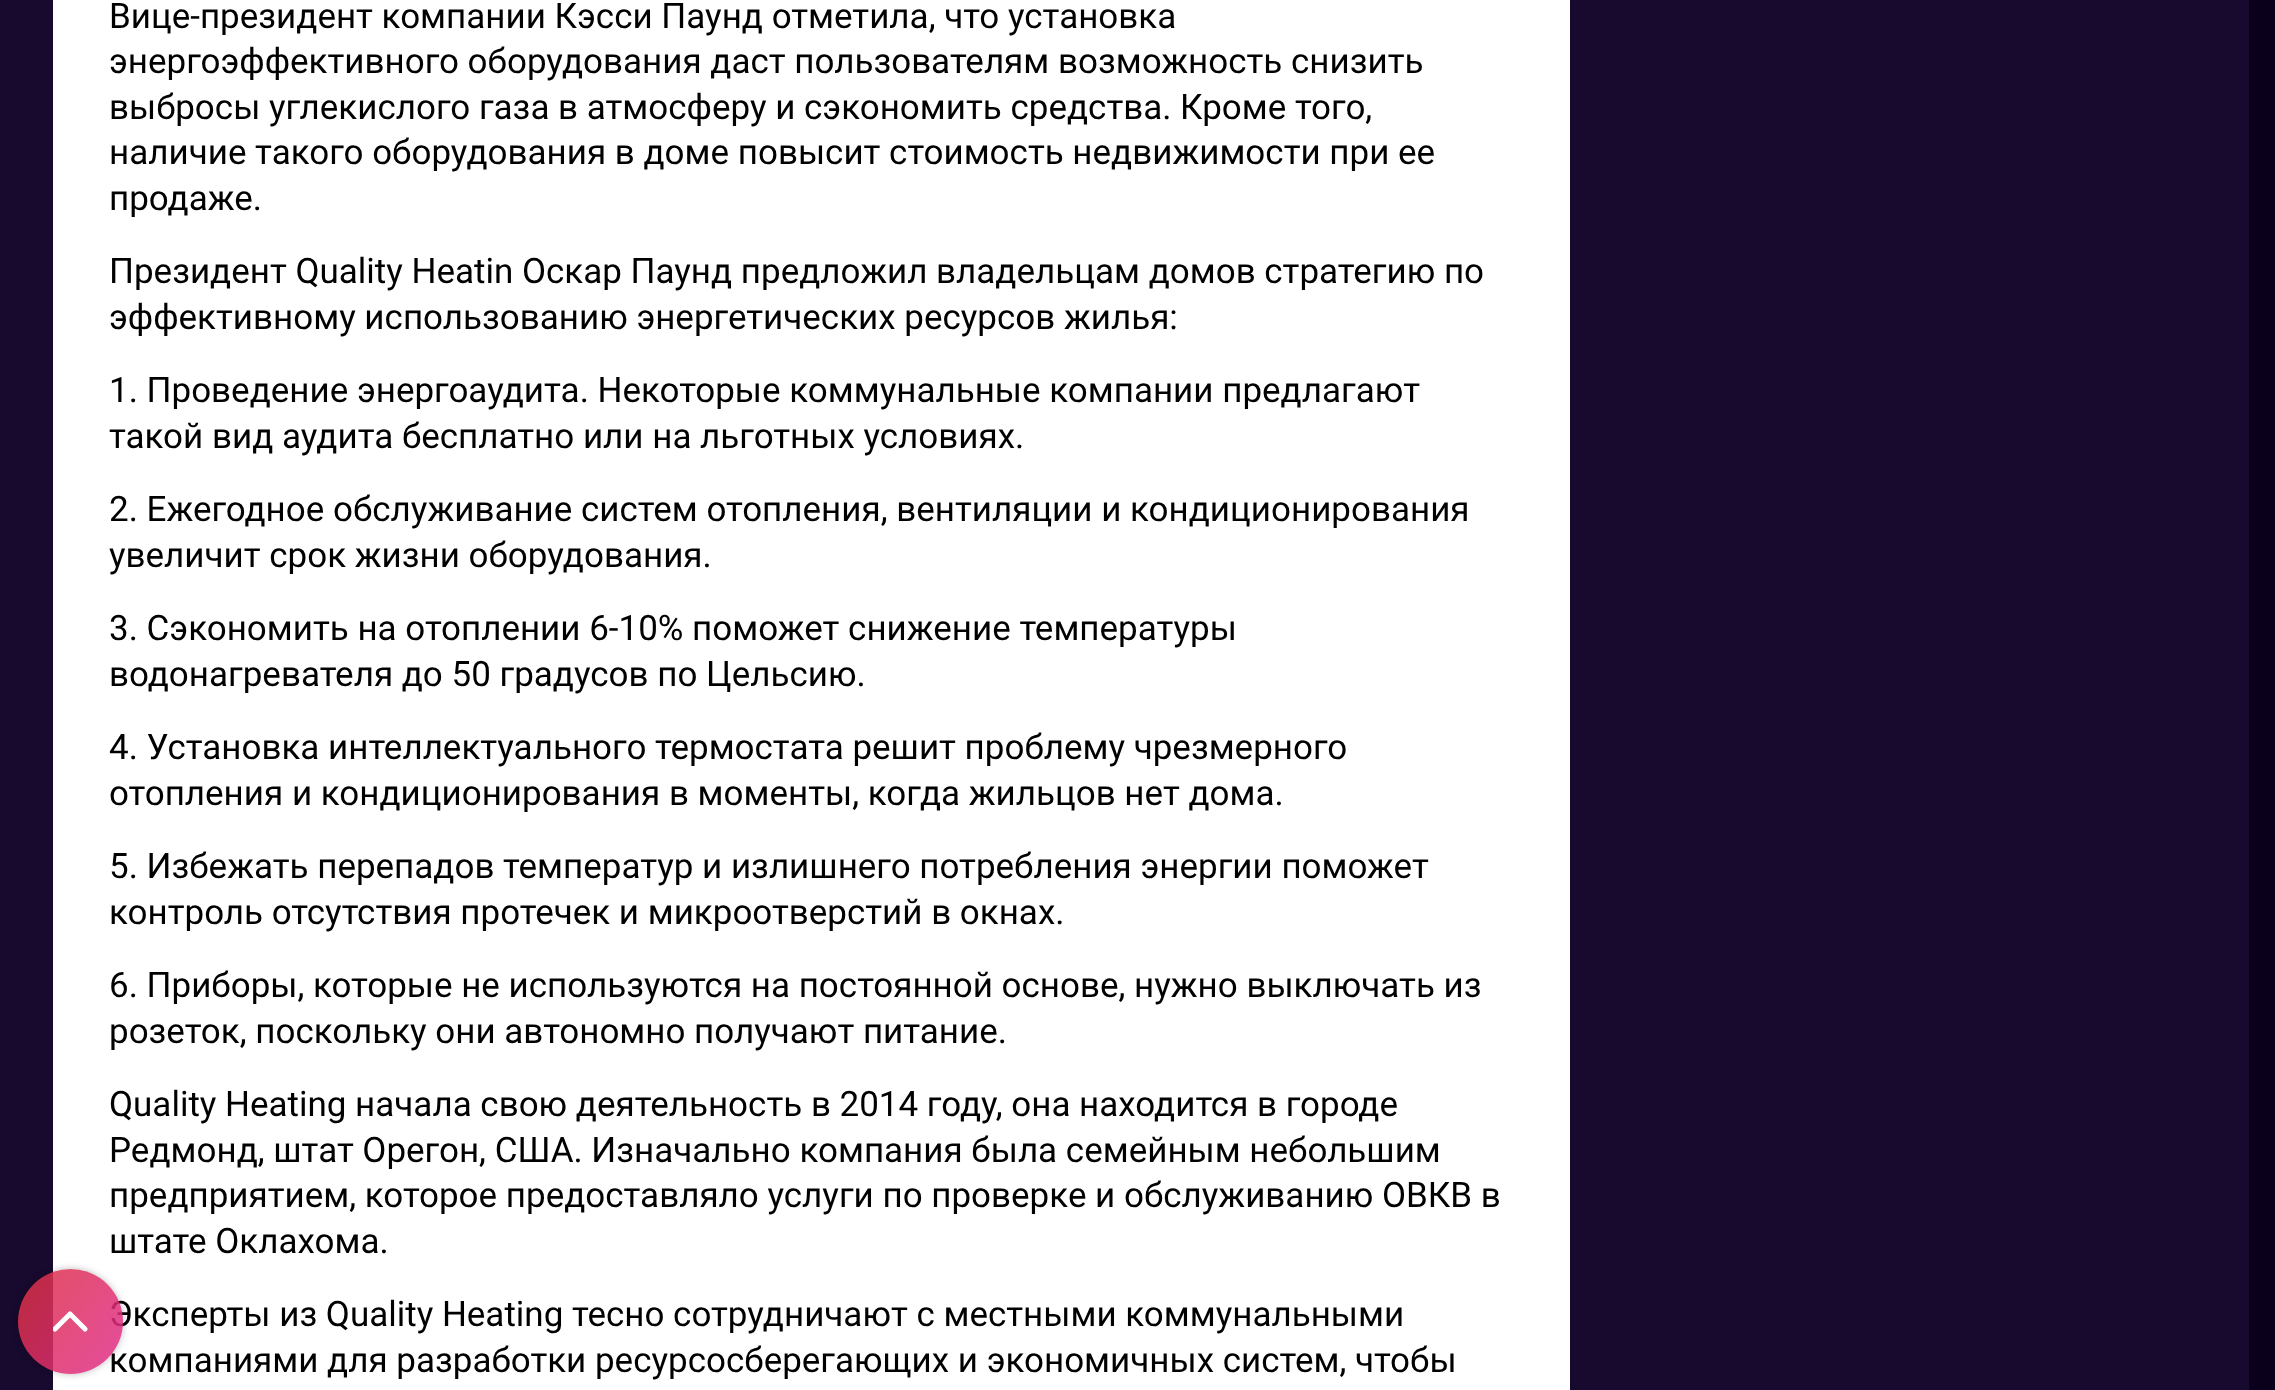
<svg xmlns="http://www.w3.org/2000/svg" xmlns:xlink="http://www.w3.org/1999/xlink" width="2275" height="1390" viewBox="0 0 2275 1390">
<style>
.cls-1{font:35px Roboto;fill:#000000}
</style>
<defs>
<clipPath id="clip1"><path d="M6 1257H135V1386H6ZM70.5 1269C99.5 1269 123 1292.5 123 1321.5C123 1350.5 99.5 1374 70.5 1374C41.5 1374 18 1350.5 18 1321.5C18 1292.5 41.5 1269 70.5 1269Z" clip-rule="evenodd"/></clipPath>
<linearGradient id="g1" gradientUnits="userSpaceOnUse" x1="9" y1="1282" x2="131" y2="1360"><stop offset="0" stop-color="#dd313f" stop-opacity="0.85"/><stop offset="1" stop-color="#e02c8d" stop-opacity="0.85"/></linearGradient>
<clipPath id="clip2"><rect x="53" y="1304" width="35" height="35"/></clipPath>
</defs>
<rect width="100%" height="100%" fill="#0b001c"/>
<rect fill="#180a2e" x="0" y="0" width="2249" height="1390"/>
<rect fill="#ffffff" x="53" y="0" width="1517" height="1390"/>
<g clip-path="url(#clip1)">
<rect fill="#000000" fill-opacity="0.26" filter="blur(3.5px)" x="18" y="1269" width="105" height="105" rx="52.5"/>
</g>
<text class="cls-1"><tspan x="109" y="28">Вице-президент компании Кэсси Паунд отметила, что установка</tspan><tspan x="109" y="73">энергоэффективного оборудования даст пользователям возможность снизить</tspan><tspan x="109" y="119">выбросы углекислого газа в атмосферу и сэкономить средства. Кроме того,</tspan><tspan x="109" y="164">наличие такого оборудования в доме повысит стоимость недвижимости при ее</tspan><tspan x="109" y="210">продаже.</tspan></text>
<text class="cls-1"><tspan x="109" y="283">Президент Quality Heatin Оскар Паунд предложил владельцам домов стратегию по</tspan><tspan x="109" y="329">эффективному использованию энергетических ресурсов жилья:</tspan></text>
<text class="cls-1"><tspan x="109" y="402">1. Проведение энергоаудита. Некоторые коммунальные компании предлагают</tspan><tspan x="109" y="448">такой вид аудита бесплатно или на льготных условиях.</tspan></text>
<text class="cls-1"><tspan x="109" y="521">2. Ежегодное обслуживание систем отопления, вентиляции и кондиционирования</tspan><tspan x="109" y="567">увеличит срок жизни оборудования.</tspan></text>
<text class="cls-1"><tspan x="109" y="640">3. Сэкономить на отоплении 6-10% поможет снижение температуры</tspan><tspan x="109" y="686">водонагревателя до 50 градусов по Цельсию.</tspan></text>
<text class="cls-1"><tspan x="109" y="759">4. Установка интеллектуального термостата решит проблему чрезмерного</tspan><tspan x="109" y="805">отопления и кондиционирования в моменты, когда жильцов нет дома.</tspan></text>
<text class="cls-1"><tspan x="109" y="878">5. Избежать перепадов температур и излишнего потребления энергии поможет</tspan><tspan x="109" y="924">контроль отсутствия протечек и микроотверстий в окнах.</tspan></text>
<text class="cls-1"><tspan x="109" y="997">6. Приборы, которые не используются на постоянной основе, нужно выключать из</tspan><tspan x="109" y="1043">розеток, поскольку они автономно получают питание.</tspan></text>
<text class="cls-1"><tspan x="109" y="1116">Quality Heating начала свою деятельность в 2014 году, она находится в городе</tspan><tspan x="109" y="1162">Редмонд, штат Орегон, США. Изначально компания была семейным небольшим</tspan><tspan x="109" y="1207">предприятием, которое предоставляло услуги по проверке и обслуживанию ОВКВ в</tspan><tspan x="109" y="1253">штате Оклахома.</tspan></text>
<text class="cls-1"><tspan x="109" y="1326">Эксперты из Quality Heating тесно сотрудничают с местными коммунальными</tspan><tspan x="109" y="1372">компаниями для разработки ресурсосберегающих и экономичных систем, чтобы</tspan></text>
<circle fill="url(#g1)" cx="70.5" cy="1321.5" r="52.5"/>
<g clip-path="url(#clip2)">
<path fill="none" stroke="#ffffff" stroke-width="5" stroke-linecap="round" stroke-linejoin="round" d="M55 1329L70 1314L85 1329"/>
</g>
</svg>
